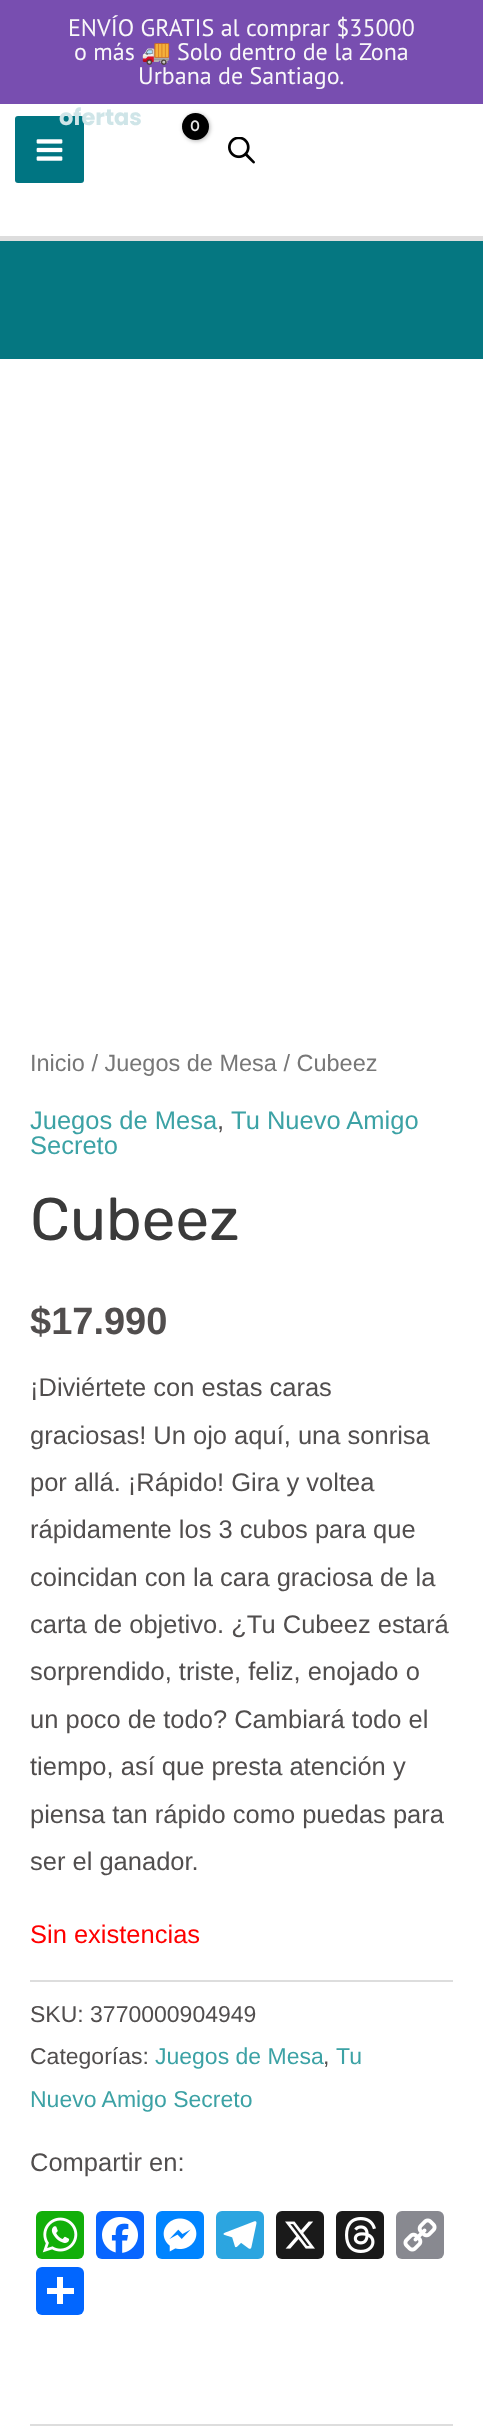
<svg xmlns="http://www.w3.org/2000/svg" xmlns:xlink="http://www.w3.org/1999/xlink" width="483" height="2431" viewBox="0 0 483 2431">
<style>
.cls-1{font:24px PT Sans;fill:#f9f8f9}
.cls-2{font:24px Noto Color Emoji;fill:#f9f8f9}
.cls-3{font:bold 22.5px Poppins;fill:#cfe5e8}
.cls-4{font:bold 16px Karla;letter-spacing:-1px;fill:#e5e5e5}
.cls-5{font:23.5px Liberation Sans;fill:#777777}
.cls-6{font:25.5px Liberation Sans;fill:#3ca2a5}
.cls-7{font:25.5px Liberation Sans;fill:#514e4e}
.cls-8{font:60px Rubik;fill:#3a3a3a}
.cls-9{font:bold 38px Liberation Sans;fill:#514e4e}
.cls-10{font:25.5px Liberation Sans;fill:#ff0000}
.cls-11{font:23px Liberation Sans;fill:#514e4e}
.cls-12{font:23px Liberation Sans;fill:#3ca2a5}
</style>
<rect width="100%" height="100%" fill="#ffffff"/>
<rect fill="#784eb0" x="0" y="0" width="483" height="104"/>
<rect fill="#dddddd" x="0" y="236" width="483" height="5"/>
<rect fill="#007582" x="15" y="116" width="69" height="67" rx="3"/>
<image xlink:href="image0.png" x="36" y="139" width="27" height="22"/>
<rect fill="#000000" fill-opacity="0.3" filter="blur(2px)" x="183" y="114" width="27" height="27" rx="13.5"/>
<circle fill="#000000" cx="195.5" cy="126.5" r="13.5"/>
<image xlink:href="image1.png" x="228" y="137" width="27" height="27"/>
<rect fill="#057781" x="0" y="241" width="483" height="118"/>
<rect fill="#dddddd" x="30" y="1980" width="423" height="2"/>
<rect fill="#12af0a" x="36" y="2211" width="48" height="48" rx="6"/>
<image xlink:href="image2.png" x="42" y="2217" width="36" height="36"/>
<rect fill="#0866ff" x="96" y="2211" width="48" height="48" rx="6"/>
<image xlink:href="image3.png" x="102" y="2217" width="36" height="36"/>
<rect fill="#0084ff" x="156" y="2211" width="48" height="48" rx="6"/>
<image xlink:href="image4.png" x="163" y="2218" width="34" height="34"/>
<rect fill="#2ca5e0" x="216" y="2211" width="48" height="48" rx="6"/>
<image xlink:href="image5.png" x="223" y="2221" width="34" height="28"/>
<rect fill="#1a1a1a" x="276" y="2211" width="48" height="48" rx="6"/>
<image xlink:href="image6.png" x="285" y="2221" width="30" height="28"/>
<rect fill="#1a1a1a" x="336" y="2211" width="48" height="48" rx="6"/>
<image xlink:href="image7.png" x="345" y="2217" width="31" height="36"/>
<rect fill="#888990" x="396" y="2211" width="48" height="48" rx="6"/>
<image xlink:href="image8.png" x="403" y="2218" width="34" height="34"/>
<rect fill="#0166ff" x="36" y="2267" width="48" height="48" rx="6"/>
<rect fill="#ffffff" x="57" y="2277" width="6" height="27"/>
<rect fill="#ffffff" x="47" y="2288" width="27" height="6"/>
<rect fill="#dddddd" x="30" y="2424" width="423" height="2"/>
<text class="cls-1" x="68" y="36">ENVÍO GRATIS al comprar $35000</text>
<text class="cls-1" x="74" y="60">o más</text>
<text class="cls-2" x="141" y="60">🚚</text>
<text class="cls-1" x="177" y="60">Solo dentro de la Zona</text>
<text class="cls-1" x="138" y="84">Urbana de Santiago.</text>
<text class="cls-3" x="59" y="125">ofertas</text>
<text class="cls-4" x="190" y="131">0</text>
<text class="cls-5" x="30" y="1071">Inicio / Juegos de Mesa / Cubeez</text>
<text class="cls-6" x="30" y="1129">Juegos de Mesa</text>
<text class="cls-7" x="217" y="1129">,</text>
<text class="cls-6" x="231" y="1129">Tu Nuevo Amigo</text>
<text class="cls-6" x="30" y="1154">Secreto</text>
<text class="cls-8" x="30" y="1240">Cubeez</text>
<text class="cls-9" x="30" y="1334">$17.990</text>
<text class="cls-7"><tspan x="30" y="1396">¡Diviértete con estas caras</tspan><tspan x="30" y="1444">graciosas! Un ojo aquí, una sonrisa</tspan><tspan x="30" y="1491">por allá. ¡Rápido! Gira y voltea</tspan><tspan x="30" y="1538">rápidamente los 3 cubos para que</tspan><tspan x="30" y="1586">coincidan con la cara graciosa de la</tspan><tspan x="30" y="1633">carta de objetivo. ¿Tu Cubeez estará</tspan><tspan x="30" y="1680">sorprendido, triste, feliz, enojado o</tspan><tspan x="30" y="1728">un poco de todo? Cambiará todo el</tspan><tspan x="30" y="1775">tiempo, así que presta atención y</tspan><tspan x="30" y="1823">piensa tan rápido como puedas para</tspan><tspan x="30" y="1870">ser el ganador.</tspan></text>
<text class="cls-10" x="30" y="1943">Sin existencias</text>
<text class="cls-11"><tspan x="30" y="2022">SKU: 3770000904949</tspan><tspan x="30" y="2064">Categorías:</tspan></text>
<text class="cls-12" x="155" y="2064">Juegos de Mesa</text>
<text class="cls-11" x="323" y="2064">,</text>
<text class="cls-12" x="336" y="2064">Tu</text>
<text class="cls-12" x="30" y="2107">Nuevo Amigo Secreto</text>
<text class="cls-7" x="30" y="2171">Compartir en:</text>
</svg>
